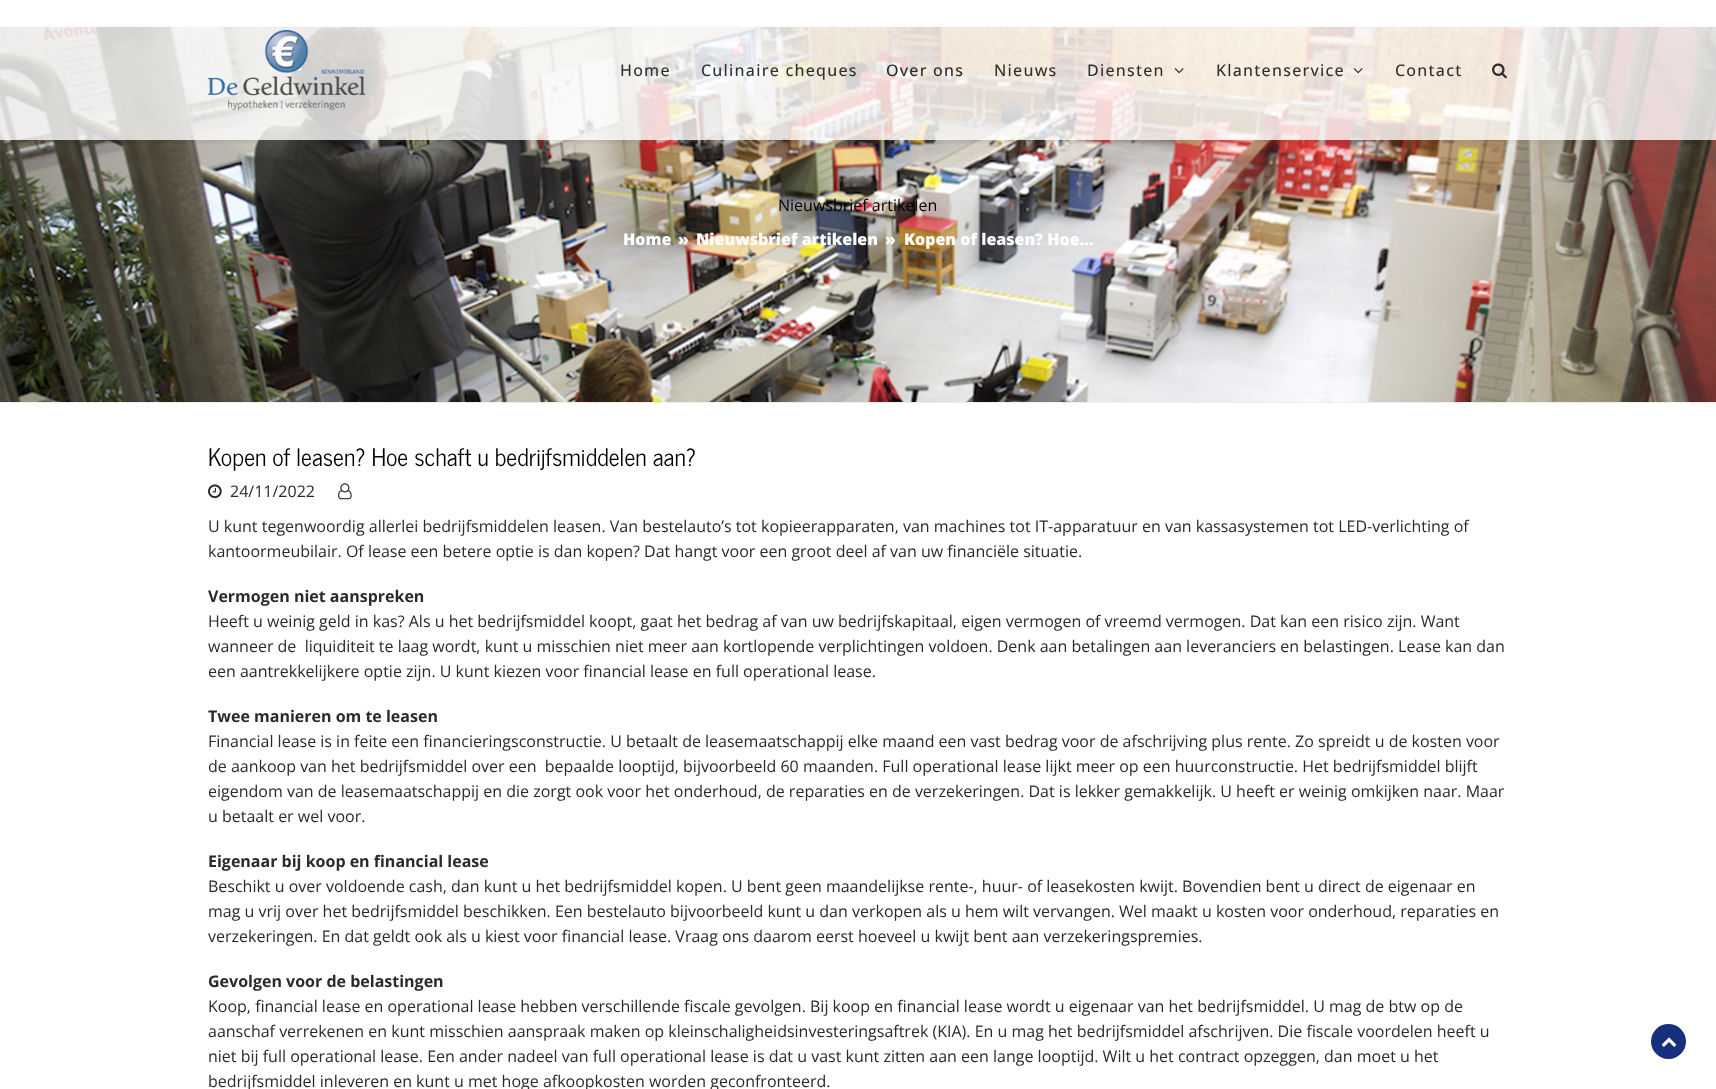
<svg xmlns="http://www.w3.org/2000/svg" xmlns:xlink="http://www.w3.org/1999/xlink" width="1716" height="1089" viewBox="0 0 1716 1089">
<style>
.cls-1{font:500 16px Open Sans;letter-spacing:1.25px;fill:#30302f}
.cls-2{font:500 16px Open Sans;letter-spacing:1.25px;fill:#2a2a2a}
.cls-3{font:16px Open Sans;fill:#000000}
.cls-4{font:800 16px Open Sans;fill:#ffffff}
.cls-5{font:24px News Cycle;fill:#000000}
.cls-6{font:16px Open Sans;fill:#2a2a2a}
.cls-7{font:bold 16px Open Sans;fill:#2a2a2a}
</style>
<defs>
<clipPath id="clip1"><rect x="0" y="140" width="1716" height="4"/></clipPath>
</defs>
<rect width="100%" height="100%" fill="#ffffff"/>
<image xlink:href="image4.png" x="0" y="27" width="1716" height="375"/>
<rect fill="#eeeeee" x="0" y="26" width="1716" height="1"/>
<g clip-path="url(#clip1)">
<rect fill="#000000" fill-opacity="0.08" filter="blur(2.5px)" x="0" y="2" width="1716" height="140"/>
</g>
<rect fill="#ffffff" fill-opacity="0.8" x="0" y="26" width="1716" height="114"/>
<image xlink:href="image0.png" x="208" y="30" width="157" height="80"/>
<image xlink:href="image1.png" x="1174" y="68" width="10" height="6"/>
<image xlink:href="image2.png" x="1353" y="68" width="10" height="6"/>
<image xlink:href="image3.png" x="1492" y="63" width="15" height="16"/>
<rect fill="#eeeeee" x="0" y="402" width="1716" height="1"/>
<image xlink:href="image5.png" x="208" y="484" width="14" height="15"/>
<image xlink:href="image6.png" x="338" y="483" width="14" height="17"/>
<circle fill="#172f7c" cx="1668.5" cy="1041.5" r="17.5"/>
<image xlink:href="image7.png" x="1661" y="1037" width="16" height="10"/>
<text class="cls-1" x="620" y="76">Home</text>
<text class="cls-1" x="701" y="76">Culinaire cheques</text>
<text class="cls-2" x="886" y="76">Over ons</text>
<text class="cls-1" x="994" y="76">Nieuws</text>
<text class="cls-1" x="1087" y="76">Diensten</text>
<text class="cls-1" x="1216" y="76">Klantenservice</text>
<text class="cls-1" x="1395" y="76">Contact</text>
<text class="cls-3" x="778" y="211">Nieuwsbrief artikelen</text>
<text class="cls-4" x="623" y="245">Home</text>
<text class="cls-4" x="678" y="245">»</text>
<text class="cls-4" x="696" y="245">Nieuwsbrief artikelen</text>
<text class="cls-4" x="885" y="245">»</text>
<text class="cls-4" x="904" y="245">Kopen of leasen? Hoe…</text>
<text class="cls-5" x="208" y="466">Kopen of leasen? Hoe schaft u bedrijfsmiddelen aan?</text>
<text class="cls-6" x="230" y="497">24/11/2022</text>
<text class="cls-6"><tspan x="208" y="532">U kunt tegenwoordig allerlei bedrijfsmiddelen leasen. Van bestelauto’s tot kopieerapparaten, van machines tot IT-apparatuur en van kassasystemen tot LED-verlichting of</tspan><tspan x="208" y="557">kantoormeubilair. Of lease een betere optie is dan kopen? Dat hangt voor een groot deel af van uw financiële situatie.</tspan></text>
<text class="cls-7" x="208" y="602">Vermogen niet aanspreken</text>
<text class="cls-6" xml:space="preserve"><tspan x="208" y="627">Heeft u weinig geld in kas? Als u het bedrijfsmiddel koopt, gaat het bedrag af van uw bedrijfskapitaal, eigen vermogen of vreemd vermogen. Dat kan een risico zijn. Want</tspan><tspan x="208" y="652">wanneer de  liquiditeit te laag wordt, kunt u misschien niet meer aan kortlopende verplichtingen voldoen. Denk aan betalingen aan leveranciers en belastingen. Lease kan dan</tspan><tspan x="208" y="677">een aantrekkelijkere optie zijn. U kunt kiezen voor financial lease en full operational lease.</tspan></text>
<text class="cls-7" x="208" y="722">Twee manieren om te leasen</text>
<text class="cls-6" xml:space="preserve"><tspan x="208" y="747">Financial lease is in feite een financieringsconstructie. U betaalt de leasemaatschappij elke maand een vast bedrag voor de afschrijving plus rente. Zo spreidt u de kosten voor</tspan><tspan x="208" y="772">de aankoop van het bedrijfsmiddel over een  bepaalde looptijd, bijvoorbeeld 60 maanden. Full operational lease lijkt meer op een huurconstructie. Het bedrijfsmiddel blijft</tspan><tspan x="208" y="797">eigendom van de leasemaatschappij en die zorgt ook voor het onderhoud, de reparaties en de verzekeringen. Dat is lekker gemakkelijk. U heeft er weinig omkijken naar. Maar</tspan><tspan x="208" y="822">u betaalt er wel voor.</tspan></text>
<text class="cls-7" x="208" y="867">Eigenaar bij koop en financial lease</text>
<text class="cls-6"><tspan x="208" y="892">Beschikt u over voldoende cash, dan kunt u het bedrijfsmiddel kopen. U bent geen maandelijkse rente-, huur- of leasekosten kwijt. Bovendien bent u direct de eigenaar en</tspan><tspan x="208" y="917">mag u vrij over het bedrijfsmiddel beschikken. Een bestelauto bijvoorbeeld kunt u dan verkopen als u hem wilt vervangen. Wel maakt u kosten voor onderhoud, reparaties en</tspan><tspan x="208" y="942">verzekeringen. En dat geldt ook als u kiest voor financial lease. Vraag ons daarom eerst hoeveel u kwijt bent aan verzekeringspremies.</tspan></text>
<text class="cls-7" x="208" y="987">Gevolgen voor de belastingen</text>
<text class="cls-6"><tspan x="208" y="1012">Koop, financial lease en operational lease hebben verschillende fiscale gevolgen. Bij koop en financial lease wordt u eigenaar van het bedrijfsmiddel. U mag de btw op de</tspan><tspan x="208" y="1037">aanschaf verrekenen en kunt misschien aanspraak maken op kleinschaligheidsinvesteringsaftrek (KIA). En u mag het bedrijfsmiddel afschrijven. Die fiscale voordelen heeft u</tspan><tspan x="208" y="1062">niet bij full operational lease. Een ander nadeel van full operational lease is dat u vast kunt zitten aan een lange looptijd. Wilt u het contract opzeggen, dan moet u het</tspan><tspan x="208" y="1087">bedrijfsmiddel inleveren en kunt u met hoge afkoopkosten worden geconfronteerd.</tspan></text>
</svg>
